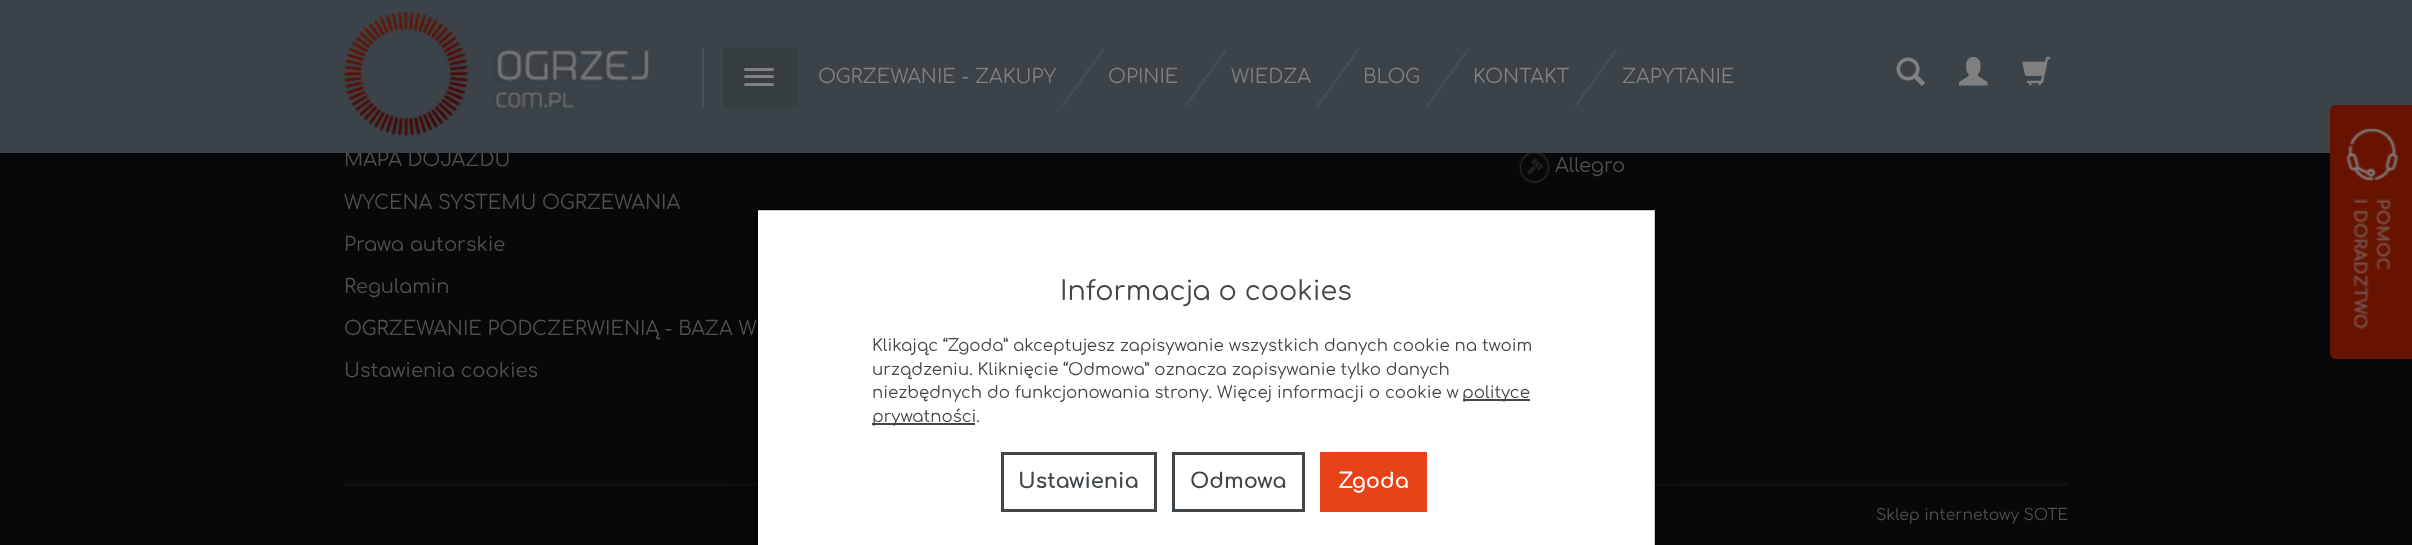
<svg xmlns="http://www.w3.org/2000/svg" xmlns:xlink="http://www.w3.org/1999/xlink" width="2412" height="545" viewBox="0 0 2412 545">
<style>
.cls-1{font:19.5px Comfortaa;fill:#505050}
.cls-2{font:19.5px Comfortaa;fill:#7f7f7f}
.cls-3{font:15.6px Comfortaa;fill:#505050}
.cls-4{font:27px Comfortaa;fill:#41464a}
.cls-5{font:16.6px Comfortaa;fill:#41464a}
.cls-6{font:bold 21px Comfortaa;fill:#41464a}
.cls-7{font:bold 21px Comfortaa;fill:#ffffff}
</style>
<rect width="100%" height="100%" fill="#070809"/>
<image xlink:href="image6.png" x="1519" y="153" width="31" height="30"/>
<rect fill="#0e1012" x="344" y="483" width="1725" height="3"/>
<rect fill="#000000" fill-opacity="0.5" filter="blur(11px)" x="756" y="216" width="900" height="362"/>
<rect fill="#ffffff" x="758" y="210" width="897" height="335"/>
<rect fill="none" stroke="#000000" stroke-opacity="0.2" stroke-width="2" x="757" y="210" width="898" height="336"/>
<rect fill="#41464a" x="1463" y="399" width="67" height="2"/>
<rect fill="#41464a" x="872" y="423" width="103" height="2"/>
<rect fill="none" stroke="#41464a" stroke-width="3" x="1002.5" y="453.5" width="153" height="57"/>
<rect fill="none" stroke="#41464a" stroke-width="3" x="1173.5" y="453.5" width="130" height="57"/>
<rect fill="#e84218" x="1320" y="452" width="107" height="60"/>
<text class="cls-1" x="344" y="166">MAPA DOJAZDU</text>
<rect fill="#3b4348" x="0" y="0" width="2412" height="153"/>
<rect fill="#353d41" x="723" y="48" width="75" height="59"/>
<rect fill="#808080" x="744" y="83" width="30" height="3" rx="1.5"/>
<rect fill="#808080" x="744" y="75" width="30" height="3" rx="1.5"/>
<rect fill="#808080" x="744" y="68" width="30" height="3" rx="1.5"/>
<text class="cls-2" x="818" y="83">OGRZEWANIE - ZAKUPY</text>
<rect fill="#4b5155" x="702" y="48" width="2" height="59"/>
<text class="cls-2" x="1622" y="83">ZAPYTANIE</text>
<image xlink:href="image1.png" x="1574" y="48" width="44" height="59"/>
<text class="cls-2" x="1473" y="83">KONTAKT</text>
<image xlink:href="image2.png" x="1426" y="48" width="43" height="59"/>
<text class="cls-2" x="1363" y="83">BLOG</text>
<image xlink:href="image1.png" x="1316" y="48" width="44" height="59"/>
<text class="cls-2" x="1231" y="83">WIEDZA</text>
<image xlink:href="image1.png" x="1184" y="48" width="44" height="59"/>
<text class="cls-2" x="1108" y="83">OPINIE</text>
<image xlink:href="image1.png" x="1061" y="48" width="44" height="59"/>
<image xlink:href="image5.png" x="2022" y="56" width="29" height="30"/>
<image xlink:href="image4.png" x="1959" y="56" width="29" height="30"/>
<image xlink:href="image3.png" x="1896" y="57" width="29" height="29"/>
<image xlink:href="image0.png" x="343" y="12" width="306" height="125"/>
<text class="cls-1" x="344" y="209">WYCENA SYSTEMU OGRZEWANIA</text>
<text class="cls-1" x="344" y="251">Prawa autorskie</text>
<text class="cls-1" x="344" y="293">Regulamin</text>
<text class="cls-1" x="344" y="335">OGRZEWANIE PODCZERWIENIĄ - BAZA W</text>
<text class="cls-1" x="344" y="377">Ustawienia cookies</text>
<text class="cls-1" x="1555" y="172">Allegro</text>
<text class="cls-3" x="1876" y="520">Sklep internetowy SOTE</text>
<path fill="#671300" d="M2336 105H2412V359H2336C2332.5 359 2330 356.5 2330 353V111C2330 107.5 2332.5 105 2336 105Z"/>
<image xlink:href="image7.png" x="2345" y="128" width="54" height="201"/>
<text class="cls-4" x="1060" y="300">Informacja o cookies</text>
<text class="cls-5"><tspan x="872" y="351">Klikając “Zgoda” akceptujesz zapisywanie wszystkich danych cookie na twoim</tspan><tspan x="872" y="375">urządzeniu. Kliknięcie “Odmowa” oznacza zapisywanie tylko danych</tspan><tspan x="872" y="398">niezbędnych do funkcjonowania strony. Więcej informacji o cookie w</tspan></text>
<text class="cls-5" x="1462" y="398">polityce</text>
<text class="cls-5" x="872" y="422">prywatności.</text>
<text class="cls-6" x="1018" y="488">Ustawienia</text>
<text class="cls-6" x="1190" y="488">Odmowa</text>
<text class="cls-7" x="1338" y="488">Zgoda</text>
</svg>
